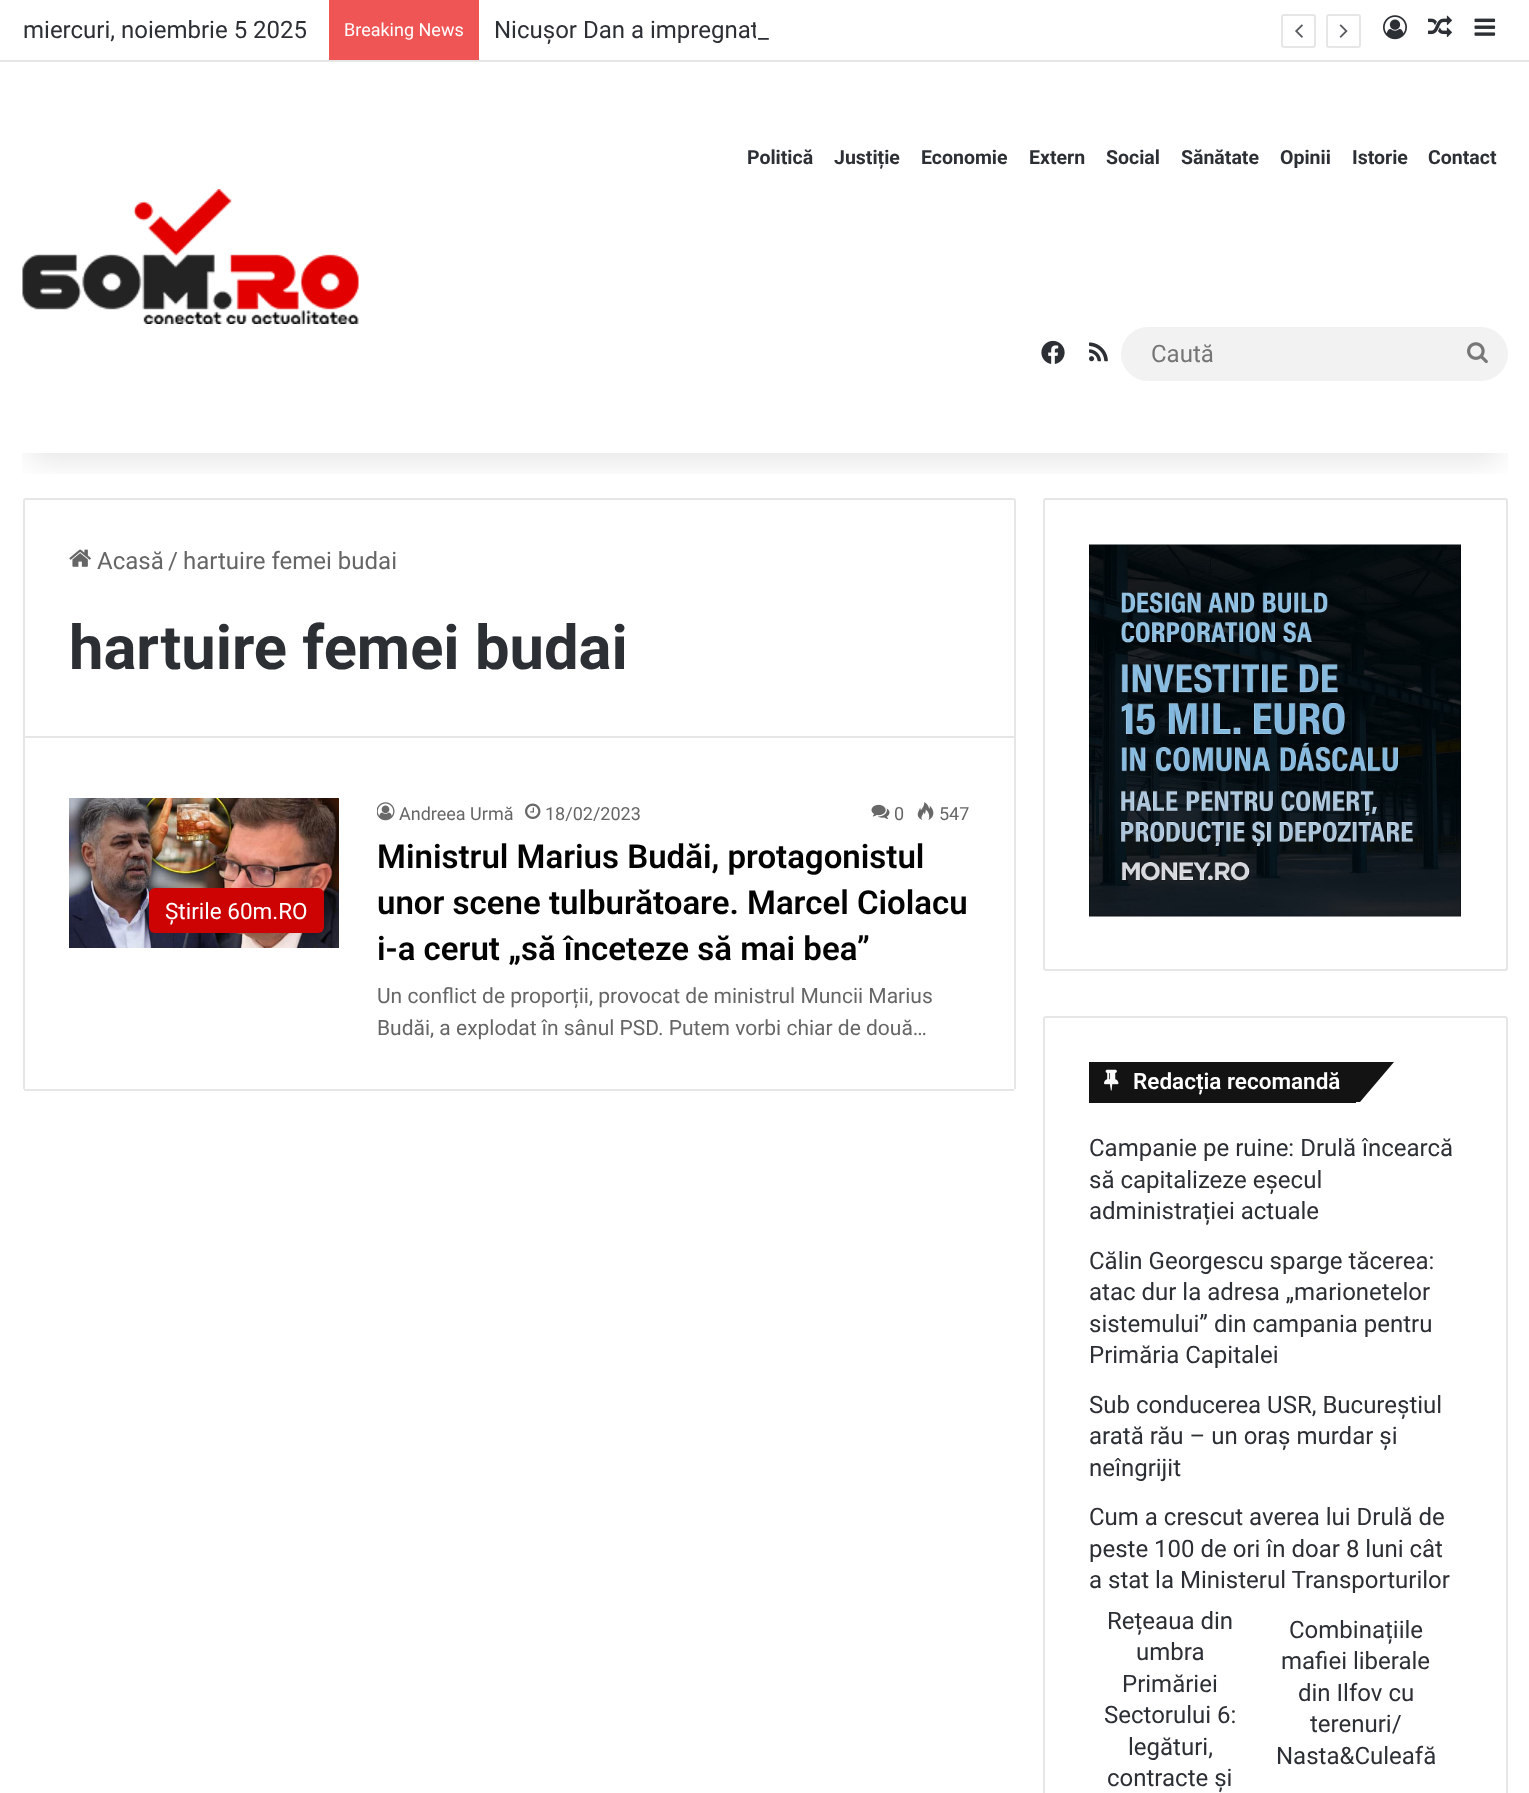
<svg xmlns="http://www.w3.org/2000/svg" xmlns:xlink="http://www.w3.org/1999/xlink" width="1529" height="1793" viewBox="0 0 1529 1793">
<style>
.cls-1{font:24px Roboto;fill:#2c2f34}
.cls-2{font:18px Roboto;fill:#ffffff}
.cls-3{font:bold 19.5px Roboto;fill:#2c2f34}
.cls-4{font:24px Roboto;fill:#757575}
.cls-5{font:24px Roboto;fill:#666666}
.cls-6{font:bold 61.5px Roboto;fill:#2c2f34}
.cls-7{font:22.5px Roboto;fill:#ffffff}
.cls-8{font:18px Roboto;fill:#666666}
.cls-9{font:600 33px Roboto;fill:#030303}
.cls-10{font:21px Roboto;fill:#666666}
.cls-11{font:600 22.5px Roboto;fill:#ffffff}
</style>
<defs>
<clipPath id="clip1"><rect x="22" y="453" width="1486" height="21"/></clipPath>
</defs>
<rect width="100%" height="100%" fill="#ffffff"/>
<path fill="none" stroke="#e6e6e6" stroke-width="2" d="M26 499H1013C1014 499 1015 500 1015 501V737H24V501C24 500 25 499 26 499Z"/>
<rect fill="none" stroke="#e6e6e6" stroke-width="2" x="1044" y="499" width="463" height="471" rx="2"/>
<g clip-path="url(#clip1)">
<rect fill="#000000" fill-opacity="0.1" filter="blur(15px)" x="30" y="68" width="1470" height="393"/>
</g>
<rect fill="#e6e6e6" x="0" y="60" width="1529" height="2"/>
<rect fill="#f05555" x="329" y="0" width="150" height="60"/>
<rect fill="none" stroke="#e6e6e6" stroke-width="2" x="1282" y="15" width="33" height="32" rx="2"/>
<image xlink:href="image0.png" x="1295" y="24" width="8" height="14"/>
<rect fill="none" stroke="#e6e6e6" stroke-width="2" x="1327" y="15" width="33" height="32" rx="2"/>
<image xlink:href="image1.png" x="1339" y="24" width="9" height="14"/>
<image xlink:href="image2.png" x="1383" y="15" width="24" height="25"/>
<image xlink:href="image3.png" x="1428" y="15" width="24" height="22"/>
<image xlink:href="image4.png" x="1474" y="18" width="22" height="18"/>
<image xlink:href="image5.png" x="22" y="189" width="337" height="135"/>
<image xlink:href="image6.png" x="1041" y="340" width="24" height="24"/>
<image xlink:href="image7.png" x="1089" y="342" width="19" height="20"/>
<rect fill="#f2f2f2" x="1121" y="327" width="387" height="54" rx="27"/>
<image xlink:href="image8.png" x="1467" y="342" width="21" height="22"/>
<image xlink:href="image9.png" x="69" y="549" width="22" height="18"/>
<rect fill="#e6e6e6" x="1014" y="738" width="2" height="351"/>
<rect fill="#e6e6e6" x="24" y="1089" width="990" height="2"/>
<rect fill="#e6e6e6" x="23" y="738" width="2" height="351"/>
<image xlink:href="image10.png" x="69" y="798" width="270" height="150"/>
<rect fill="#cd0303" x="149" y="888" width="175" height="45" rx="6"/>
<image xlink:href="image11.png" x="377" y="802" width="18" height="19"/>
<image xlink:href="image12.png" x="525" y="803" width="16" height="16"/>
<image xlink:href="image13.png" x="871" y="804" width="19" height="15"/>
<image xlink:href="image14.png" x="917" y="802" width="17" height="18"/>
<image xlink:href="image15.png" x="1089" y="544" width="372" height="373"/>
<rect fill="none" stroke="#e6e6e6" stroke-width="2" x="1044" y="1017" width="463" height="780" rx="2"/>
<rect fill="#131313" x="1089" y="1062" width="267" height="41"/>
<path fill="#131313" d="M1207 1062H1394L1360 1102H1173Z"/>
<image xlink:href="image16.png" x="1104" y="1069" width="15" height="22"/>
<text class="cls-1" x="23" y="38">miercuri, noiembrie 5 2025</text>
<text class="cls-2" x="344" y="36">Breaking News</text>
<text class="cls-1" x="494" y="38">Nicușor Dan a impregnat</text>
<rect fill="#ffffff" x="756" y="25" width="2" height="14"/>
<text class="cls-1" x="758" y="38">_</text>
<text class="cls-3" x="747" y="164">Politică</text>
<text class="cls-3" x="834" y="164">Justiție</text>
<text class="cls-3" x="921" y="164">Economie</text>
<text class="cls-3" x="1029" y="164">Extern</text>
<text class="cls-3" x="1106" y="164">Social</text>
<text class="cls-3" x="1181" y="164">Sănătate</text>
<text class="cls-3" x="1280" y="164">Opinii</text>
<text class="cls-3" x="1352" y="164">Istorie</text>
<text class="cls-3" x="1428" y="164">Contact</text>
<text class="cls-4" x="1151" y="362">Caută</text>
<text class="cls-5" x="97" y="569">Acasă</text>
<text class="cls-5" x="168" y="569">/</text>
<text class="cls-5" x="183" y="569">hartuire femei budai</text>
<text class="cls-6" x="69" y="669">hartuire femei budai</text>
<text class="cls-7" x="165" y="919">Știrile 60m.RO</text>
<text class="cls-8" x="399" y="820">Andreea Urmă</text>
<text class="cls-8" x="545" y="820">18/02/2023</text>
<text class="cls-8" x="894" y="820">0</text>
<text class="cls-8" x="939" y="820">547</text>
<text class="cls-9"><tspan x="377" y="868">Ministrul Marius Budăi, protagonistul</tspan><tspan x="377" y="914">unor scene tulburătoare. Marcel Ciolacu</tspan><tspan x="377" y="960">i-a cerut „să înceteze să mai bea”</tspan></text>
<text class="cls-10"><tspan x="377" y="1003">Un conflict de proporții, provocat de ministrul Muncii Marius</tspan><tspan x="377" y="1035">Budăi, a explodat în sânul PSD. Putem vorbi chiar de două…</tspan></text>
<text class="cls-11" x="1133" y="1089">Redacția recomandă</text>
<text class="cls-1"><tspan x="1089" y="1156">Campanie pe ruine: Drulă încearcă</tspan><tspan x="1089" y="1188">să capitalizeze eșecul</tspan><tspan x="1089" y="1219">administrației actuale</tspan></text>
<text class="cls-1"><tspan x="1089" y="1269">Călin Georgescu sparge tăcerea:</tspan><tspan x="1089" y="1300">atac dur la adresa „marionetelor</tspan><tspan x="1089" y="1332">sistemului” din campania pentru</tspan><tspan x="1089" y="1363">Primăria Capitalei</tspan></text>
<text class="cls-1"><tspan x="1089" y="1413">Sub conducerea USR, Bucureștiul</tspan><tspan x="1089" y="1444">arată rău – un oraș murdar și</tspan><tspan x="1089" y="1476">neîngrijit</tspan></text>
<text class="cls-1"><tspan x="1089" y="1525">Cum a crescut averea lui Drulă de</tspan><tspan x="1089" y="1557">peste 100 de ori în doar 8 luni cât</tspan><tspan x="1089" y="1588">a stat la Ministerul Transporturilor</tspan></text>
<text class="cls-1" x="1107" y="1629">Rețeaua din</text>
<text class="cls-1" x="1136" y="1660">umbra</text>
<text class="cls-1" x="1122" y="1692">Primăriei</text>
<text class="cls-1" x="1104" y="1723">Sectorului 6:</text>
<text class="cls-1" x="1128" y="1755">legături,</text>
<text class="cls-1" x="1107" y="1786">contracte și</text>
<text class="cls-1" x="1289" y="1638">Combinațiile</text>
<text class="cls-1" x="1281" y="1669">mafiei liberale</text>
<text class="cls-1" x="1298" y="1701">din Ilfov cu</text>
<text class="cls-1" x="1310" y="1732">terenuri/</text>
<text class="cls-1" x="1276" y="1764">Nasta&amp;Culeafă</text>
</svg>
